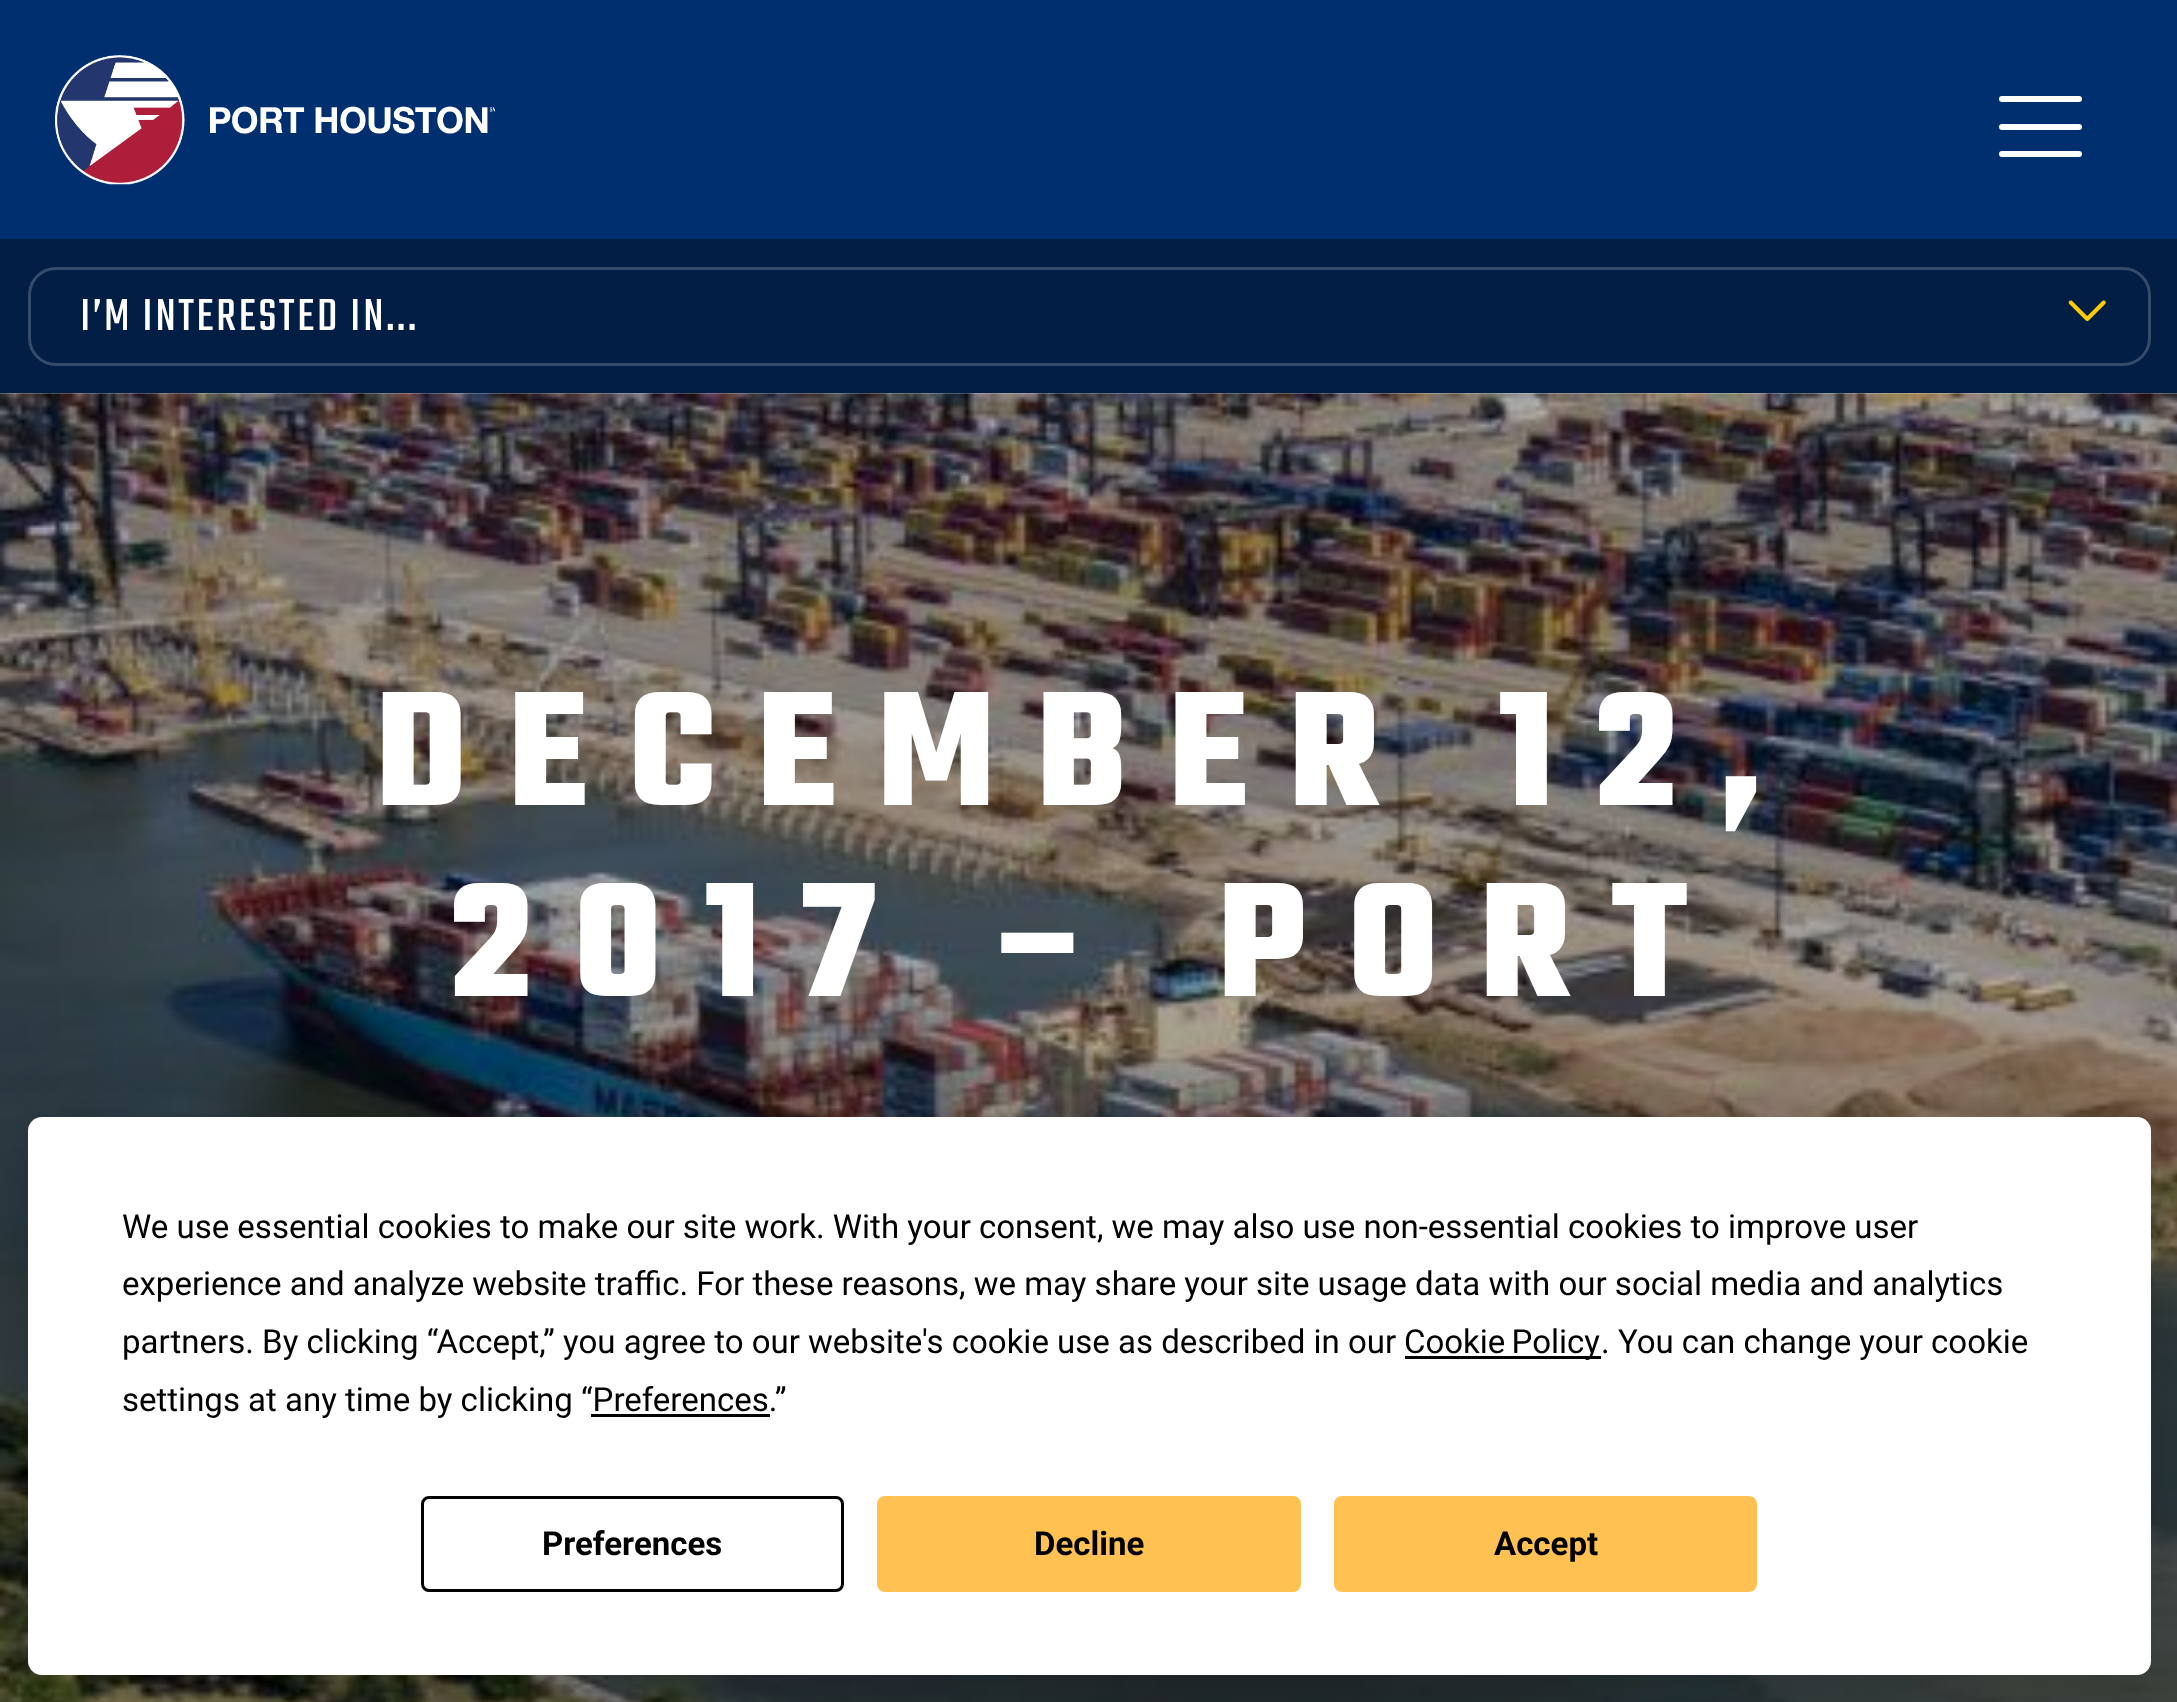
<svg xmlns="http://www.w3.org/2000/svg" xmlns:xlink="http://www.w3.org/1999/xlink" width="2177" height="1702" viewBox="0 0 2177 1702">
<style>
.cls-1{font:49.5px Teko;letter-spacing:2.75px;fill:#ffffff}
.cls-2{font:300 176px Teko;letter-spacing:41.25px;fill:#ffffff}
.cls-3{font:33px Roboto;fill:#000000}
.cls-4{font:bold 33px Roboto;fill:#000000}
</style>
<rect width="100%" height="100%" fill="#ffffff"/>
<rect fill="#031e45" x="0" y="239" width="2177" height="154"/>
<rect fill="#002f70" x="0" y="0" width="2177" height="239"/>
<image xlink:href="image0.png" x="55" y="55" width="440" height="130"/>
<rect fill="#ffffff" x="1999" y="124" width="83" height="6" rx="3"/>
<rect fill="#ffffff" x="1999" y="96" width="83" height="6" rx="3"/>
<rect fill="#ffffff" x="1999" y="151" width="83" height="6" rx="3"/>
<rect fill="none" stroke="#354b6a" stroke-width="3" x="29.5" y="268.5" width="2120" height="96" rx="26.5"/>
<image xlink:href="image1.png" x="2068" y="300" width="38" height="21"/>
<image xlink:href="image2.png" x="0" y="393" width="2177" height="1309"/>
<rect fill="#000000" fill-opacity="0.25" filter="blur(48px)" x="28" y="1117" width="2123" height="558" rx="14"/>
<rect fill="#ffffff" x="28" y="1117" width="2123" height="558" rx="14"/>
<rect fill="#000000" x="1405" y="1356" width="196" height="3"/>
<rect fill="#000000" x="591" y="1414" width="179" height="3"/>
<rect fill="none" stroke="#000000" stroke-width="3" x="422.5" y="1497.5" width="420" height="93" rx="6.5"/>
<rect fill="#ffc252" stroke="#ffc252" stroke-width="3" x="878.5" y="1497.5" width="421" height="93" rx="6.5"/>
<rect fill="#ffc252" stroke="#ffc252" stroke-width="3" x="1335.5" y="1497.5" width="420" height="93" rx="6.5"/>
<text class="cls-1" x="80" y="330">I’M INTERESTED IN...</text>
<text class="cls-2" x="374" y="805">DECEMBER 12,</text>
<text class="cls-2" x="450" y="996">2017 – PORT</text>
<text class="cls-3"><tspan x="122" y="1238">We use essential cookies to make our site work. With your consent, we may also use non-essential cookies to improve user</tspan><tspan x="122" y="1295">experience and analyze website traffic. For these reasons, we may share your site usage data with our social media and analytics</tspan><tspan x="122" y="1353">partners. By clicking “Accept,” you agree to our website's cookie use as described in our</tspan></text>
<text class="cls-3" x="1404" y="1353" word-spacing="-2">Cookie Policy</text>
<text class="cls-3" x="1601" y="1353">. You can change your cookie</text>
<text class="cls-3" x="122" y="1411">settings at any time by clicking “Preferences.”</text>
<text class="cls-4" x="542" y="1555">Preferences</text>
<text class="cls-4" x="1034" y="1555">Decline</text>
<text class="cls-4" x="1494" y="1555">Accept</text>
</svg>
